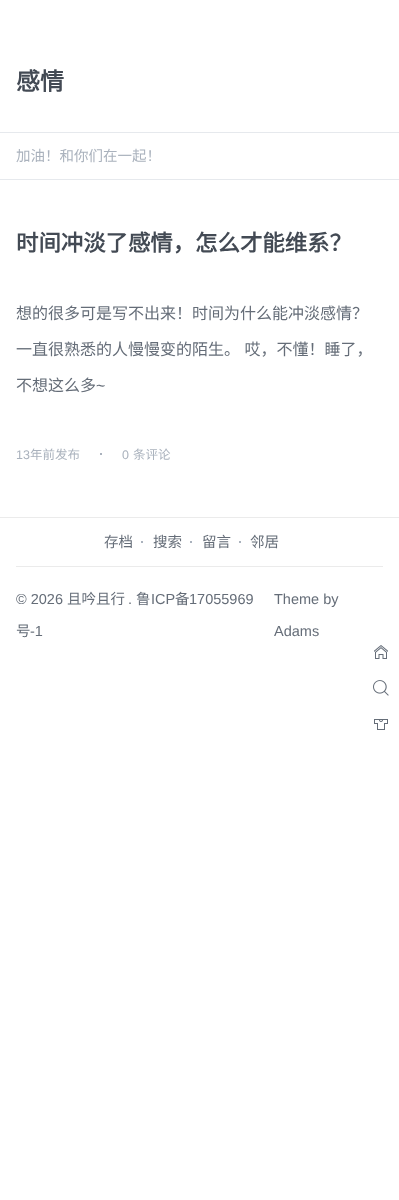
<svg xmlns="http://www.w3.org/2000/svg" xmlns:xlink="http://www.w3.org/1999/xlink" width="399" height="1200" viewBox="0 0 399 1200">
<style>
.cls-1{font:bold 24px Noto Sans CJK SC;fill:#434a54}
.cls-2{font:14.5px Noto Sans CJK SC;fill:#aab2bd}
.cls-3{font:bold 22.4px Noto Sans CJK SC;fill:#434a54}
.cls-4{font:16px Noto Sans CJK SC;fill:#656d78}
.cls-5{font:16px Liberation Sans;fill:#656d78}
.cls-6{font:12.5px Liberation Sans;fill:#aab2bd}
.cls-7{font:12.5px Noto Sans CJK SC;fill:#aab2bd}
.cls-8{font:14.5px Noto Sans CJK SC;fill:#656d78}
.cls-9{font:14.5px Liberation Sans;fill:#656d78}
</style>
<rect width="100%" height="100%" fill="#ffffff"/>
<rect fill="#e6e9ed" x="0" y="132" width="399" height="1"/>
<rect fill="#e6e9ed" x="0" y="179" width="399" height="1"/>
<rect fill="#aab2bd" x="100" y="453" width="2" height="2"/>
<rect fill="#ebebeb" x="0" y="517" width="399" height="1"/>
<rect fill="#ebebeb" x="16" y="566" width="367" height="1"/>
<rect fill="#aab2bd" x="141" y="541" width="2" height="2"/>
<rect fill="#aab2bd" x="190" y="541" width="2" height="2"/>
<rect fill="#aab2bd" x="239" y="541" width="2" height="2"/>
<image xlink:href="image0.png" x="374" y="645" width="14" height="14"/>
<image xlink:href="image1.png" x="373" y="680" width="16" height="16"/>
<image xlink:href="image2.png" x="374" y="719" width="14" height="11"/>
<text class="cls-1" x="16" y="90">感情</text>
<text class="cls-2" x="16" y="161">加油！和你们在一起！</text>
<text class="cls-3" x="16" y="251">时间冲淡了感情，怎么才能维系？</text>
<text class="cls-4" x="16" y="319">想的很多可是写不出来！时间为什么能冲淡感情？</text>
<text class="cls-4" x="16" y="355" word-spacing="1">一直很熟悉的人慢慢变的陌生。 哎，不懂！睡了，</text>
<text class="cls-4" x="16" y="391">不想这么多</text>
<text class="cls-5" x="96" y="391">~</text>
<text class="cls-6" x="16" y="459">13</text>
<text class="cls-7" x="30" y="459">年前发布</text>
<text class="cls-6" x="122" y="459">0</text>
<text class="cls-7" x="133" y="459">条评论</text>
<text class="cls-8" x="104" y="547">存档</text>
<text class="cls-8" x="153" y="547">搜索</text>
<text class="cls-8" x="202" y="547">留言</text>
<text class="cls-8" x="250" y="547">邻居</text>
<text class="cls-9" x="16" y="604">© 2026</text>
<text class="cls-8" x="67" y="604">且吟且行</text>
<text class="cls-9" x="128" y="604">.</text>
<text class="cls-8" x="136" y="604">鲁</text>
<text class="cls-9" x="151" y="604">ICP</text>
<text class="cls-8" x="175" y="604">备</text>
<text class="cls-9" x="189" y="604">17055969</text>
<text class="cls-8" x="16" y="636">号</text>
<text class="cls-9" x="30" y="636">-1</text>
<text class="cls-9" x="274" y="604">Theme by</text>
<text class="cls-9" x="274" y="636">Adams</text>
</svg>
